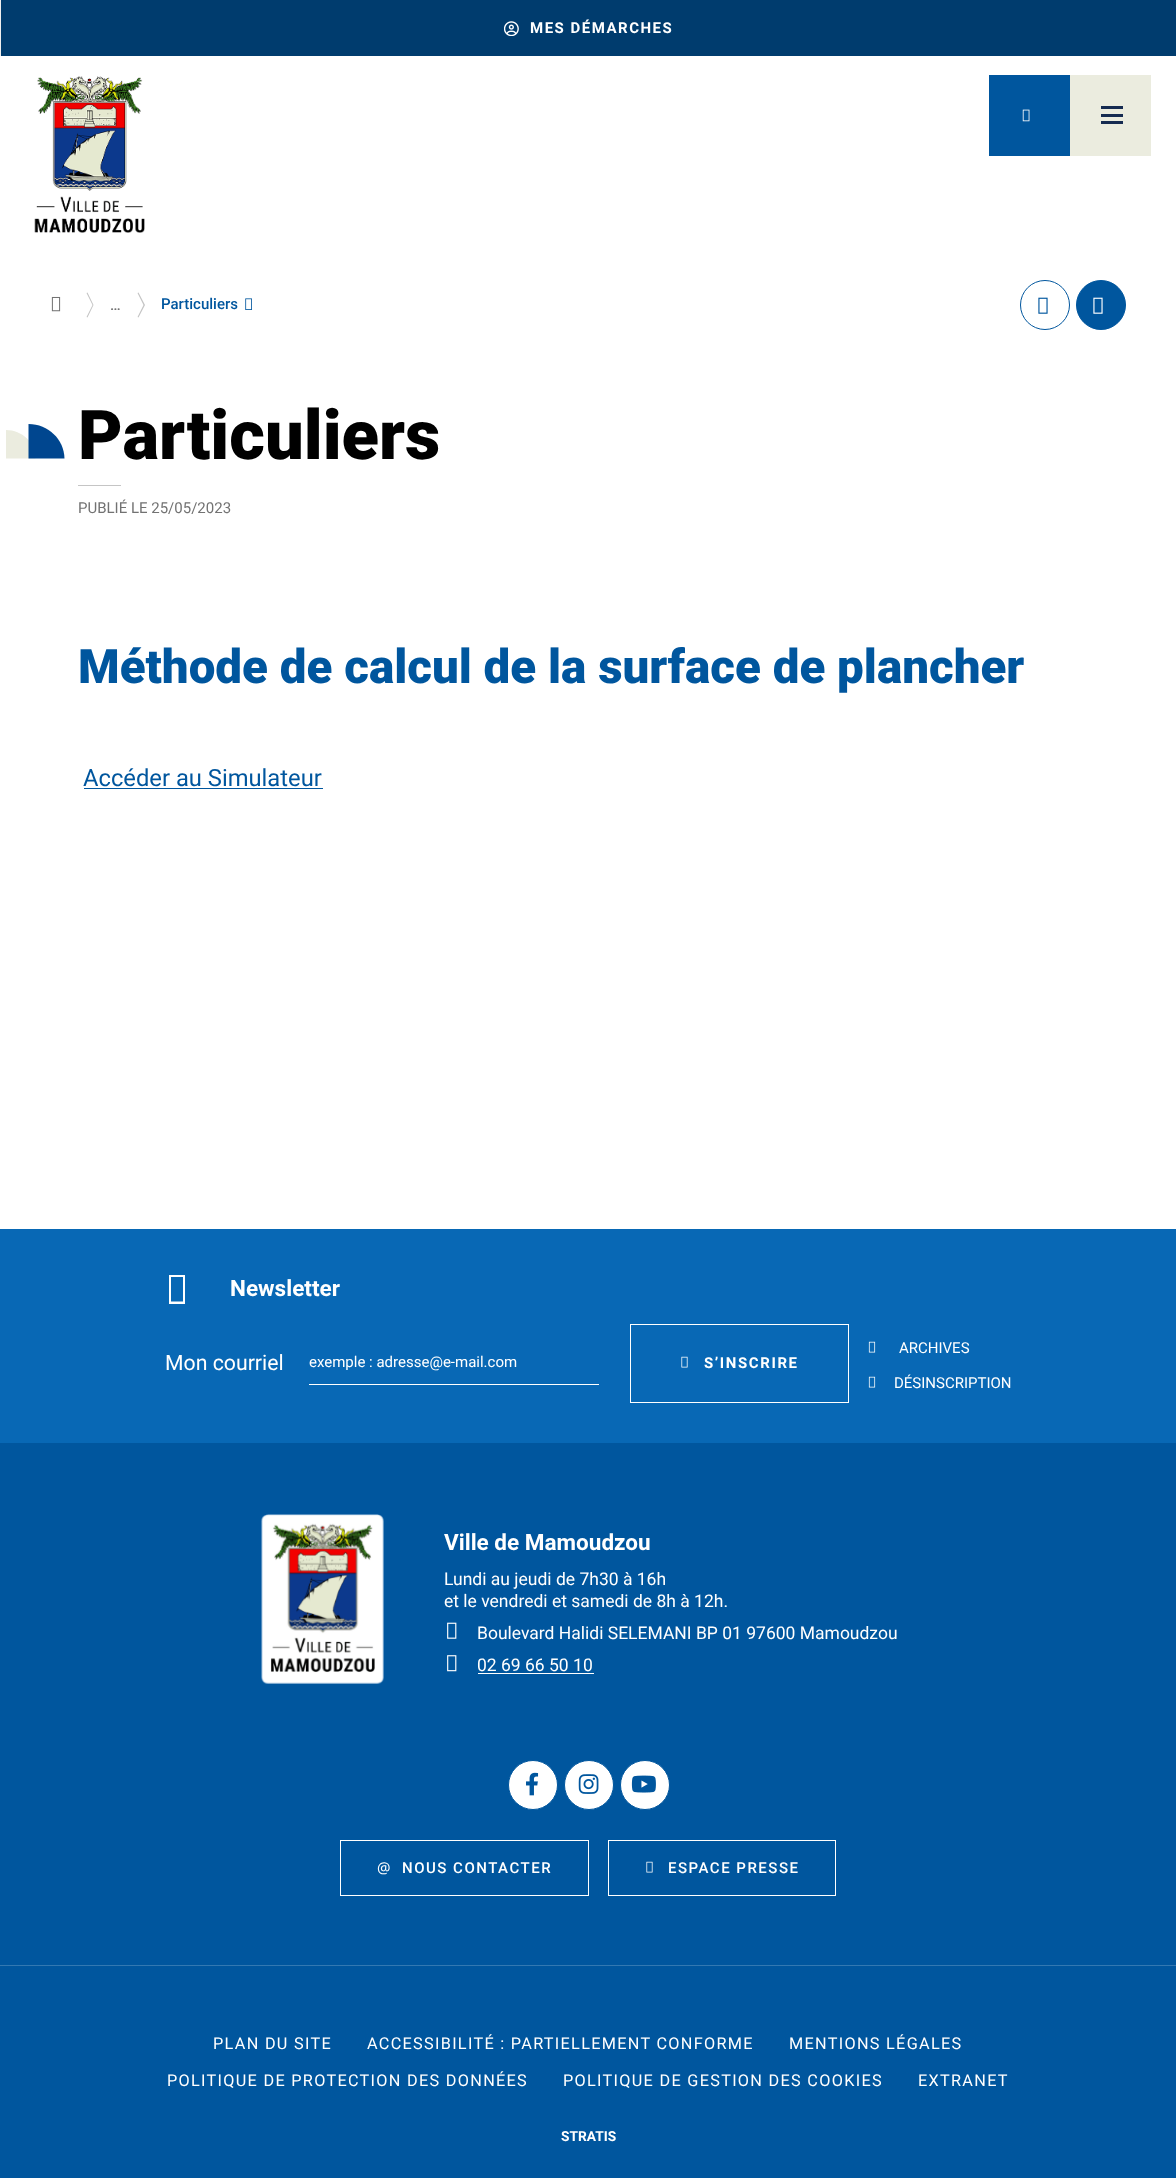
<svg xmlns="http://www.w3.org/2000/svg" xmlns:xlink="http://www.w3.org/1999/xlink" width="1176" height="2178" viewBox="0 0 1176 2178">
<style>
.cls-1{font:bold 15px Roboto;letter-spacing:1.5px;fill:#ffffff}
.cls-2{font:500 15px Roboto;fill:#727272}
.cls-3{font:500 15px Roboto;fill:#00569e}
.cls-4{font:900 68.75px Roboto;fill:#000000}
.cls-5{font:15px Roboto;fill:#727272}
.cls-6{font:900 47.5px Roboto;fill:#00569e}
.cls-7{font:23.75px Roboto;fill:#00569e}
.cls-8{font:bold 22.5px Roboto;fill:#ffffff}
.cls-9{font:21.25px Roboto;fill:#ffffff}
.cls-10{font:15px Roboto;fill:#ffffff}
.cls-11{font:bold 15px Roboto;letter-spacing:1.6px;fill:#ffffff}
.cls-12{font:17.5px Roboto;fill:#ffffff}
.cls-13{font:15px Noto Sans;fill:#ffffff}
.cls-14{font:500 15px Roboto;letter-spacing:1.5px;fill:#ffffff}
.cls-15{font:16.25px Roboto;letter-spacing:1.3px;fill:#ffffff}
.cls-16{font:bold 13.75px Roboto;fill:#ffffff}
</style>
<rect width="100%" height="100%" fill="#ffffff"/>
<rect fill="#efefef" x="0" y="0" width="1" height="56"/>
<rect fill="#003c6e" x="1" y="0" width="1175" height="56"/>
<image xlink:href="image0.png" x="504" y="21" width="15" height="15"/>
<image xlink:href="image1.png" x="34" y="76" width="111" height="157"/>
<rect fill="#00569e" x="989" y="75" width="81" height="81"/>
<image xlink:href="image2.png" x="1022" y="109" width="8" height="13"/>
<rect fill="#ebecdf" x="1070" y="75" width="81" height="81"/>
<rect fill="#152b51" x="1101" y="106" width="22" height="3"/>
<rect fill="#152b51" x="1101" y="114" width="22" height="3"/>
<rect fill="#152b51" x="1101" y="121" width="22" height="3"/>
<image xlink:href="image3.png" x="51" y="296" width="10" height="16"/>
<path fill="#c5c5c5" d="M87.5 317.5L86.5 317L92.5 305L86.5 293L87.5 292.5L93.5 305Z"/>
<path fill="#c5c5c5" d="M138.5 317.5L137.5 317L143.5 305L137.5 293L138.5 292.5L145 305Z"/>
<image xlink:href="image4.png" x="245" y="298" width="7" height="12"/>
<circle fill="none" stroke="#00569e" cx="1045" cy="305" r="24.5"/>
<image xlink:href="image5.png" x="1038" y="297" width="10" height="17"/>
<circle fill="#00569e" stroke="#00569e" cx="1101" cy="305" r="24.5"/>
<image xlink:href="image6.png" x="1093" y="297" width="10" height="17"/>
<path fill="#ebecdf" d="M6 430V458.5H35.5C35.5 442.5 22 430 6 430"/>
<path fill="#00468f" d="M28.5 424V458.5H64.5C64 439.5 48.5 424 28.5 424"/>
<rect fill="#c5c5c5" x="78" y="485" width="43" height="1"/>
<rect fill="#00569e" x="84" y="788" width="239" height="1"/>
<rect fill="#0868b5" x="0" y="1229" width="1176" height="214"/>
<path fill="#ffffff" d="M169 1304V1275H185V1304ZM171 1301.5H183V1277H171Z"/>
<rect fill="#ffffff" x="309" y="1384" width="290" height="1"/>
<rect fill="none" stroke="#ffffff" x="630.5" y="1324.5" width="218" height="78"/>
<image xlink:href="image7.png" x="681" y="1356" width="7" height="12"/>
<image xlink:href="image8.png" x="868" y="1341" width="8" height="12"/>
<image xlink:href="image8.png" x="868" y="1376" width="8" height="12"/>
<rect fill="#00569e" x="0" y="1443" width="1176" height="522"/>
<image xlink:href="image9.png" x="261" y="1514" width="123" height="170"/>
<image xlink:href="image10.png" x="447" y="1622" width="10" height="17"/>
<image xlink:href="image11.png" x="447" y="1655" width="10" height="17"/>
<rect fill="#ffffff" x="478" y="1673" width="116" height="1"/>
<circle fill="#ffffff" stroke="#00569e" cx="533" cy="1785" r="24.5"/>
<image xlink:href="image12.png" x="526" y="1772" width="13" height="24"/>
<circle fill="#ffffff" stroke="#00569e" cx="589" cy="1785" r="24.5"/>
<image xlink:href="image13.png" x="578" y="1774" width="21" height="20"/>
<circle fill="#ffffff" stroke="#00569e" cx="645" cy="1785" r="24.5"/>
<image xlink:href="image14.png" x="631" y="1775" width="25" height="18"/>
<rect fill="none" stroke="#ffffff" x="340.5" y="1840.5" width="248" height="55"/>
<rect fill="none" stroke="#ffffff" x="608.5" y="1840.5" width="227" height="55"/>
<image xlink:href="image15.png" x="646" y="1861" width="7" height="12"/>
<rect fill="#00569e" x="0" y="1966" width="1176" height="212"/>
<rect fill="#3378b1" x="0" y="1965" width="1176" height="1"/>
<text class="cls-1" x="530" y="33">MES DÉMARCHES</text>
<text class="cls-2" x="110" y="310">…</text>
<text class="cls-3" x="161" y="309">Particuliers</text>
<text class="cls-4" x="78" y="459">Particuliers</text>
<text class="cls-5" x="78" y="513">PUBLIÉ LE 25/05/2023</text>
<text class="cls-6" x="78" y="683">Méthode de calcul de la surface de plancher</text>
<text class="cls-7" x="83" y="786">Accéder au Simulateur</text>
<text class="cls-8" x="230" y="1296">Newsletter</text>
<text class="cls-9" x="165" y="1370">Mon courriel</text>
<text class="cls-10" x="309" y="1367">exemple : adresse@e-mail.com</text>
<text class="cls-11" x="704" y="1368">S’INSCRIRE</text>
<text class="cls-10" x="899" y="1353">ARCHIVES</text>
<text class="cls-10" x="894" y="1388">DÉSINSCRIPTION</text>
<text class="cls-8" x="444" y="1550">Ville de Mamoudzou</text>
<text class="cls-12"><tspan x="444" y="1585">Lundi au jeudi de 7h30 à 16h</tspan><tspan x="444" y="1607">et le vendredi et samedi de 8h à 12h.</tspan></text>
<text class="cls-12"><tspan x="477" y="1639">Boulevard Halidi SELEMANI BP 01 97600 Mamoudzou</tspan><tspan x="477" y="1671">02 69 66 50 10</tspan></text>
<text class="cls-13" x="377" y="1873">@</text>
<text class="cls-14" x="402" y="1873">NOUS CONTACTER</text>
<text class="cls-14" x="668" y="1873">ESPACE PRESSE</text>
<text class="cls-15" x="213" y="2049">PLAN DU SITE</text>
<text class="cls-15" x="367" y="2049">ACCESSIBILITÉ : PARTIELLEMENT CONFORME</text>
<text class="cls-15" x="789" y="2049">MENTIONS LÉGALES</text>
<text class="cls-15" x="167" y="2086">POLITIQUE DE PROTECTION DES DONNÉES</text>
<text class="cls-15" x="563" y="2086">POLITIQUE DE GESTION DES COOKIES</text>
<text class="cls-15" x="918" y="2086">EXTRANET</text>
<text class="cls-16" x="561" y="2141">STRATIS</text>
</svg>
